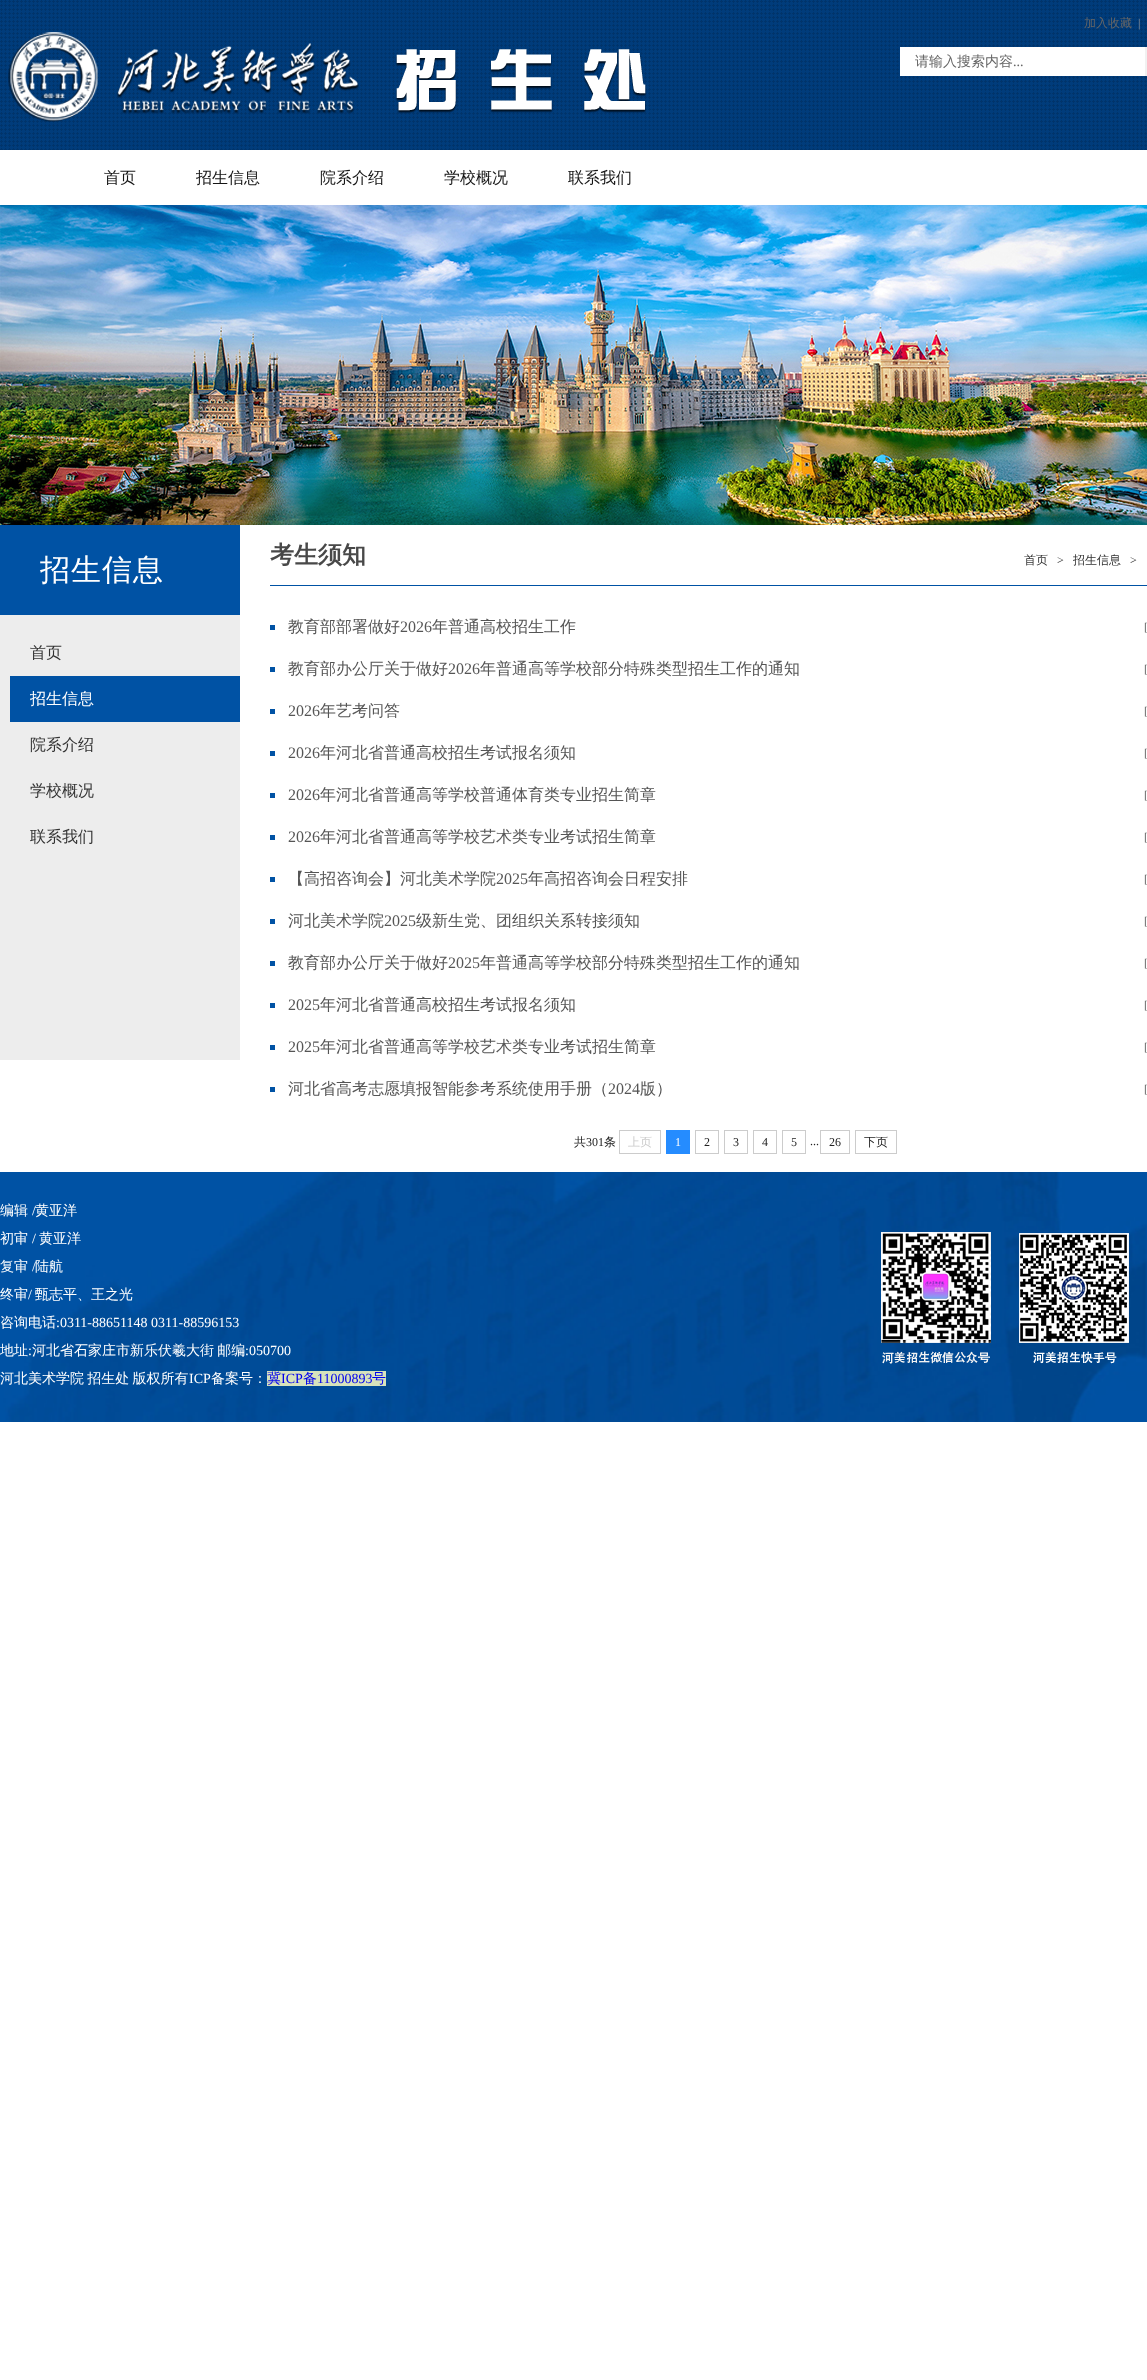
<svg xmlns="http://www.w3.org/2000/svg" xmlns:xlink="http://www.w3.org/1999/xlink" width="1147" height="2380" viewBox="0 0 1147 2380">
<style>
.cls-1{font:500 12px WenQuanYi Zen Hei;fill:#666666}
.cls-2{font:12px Liberation Serif;fill:#999999}
.cls-3{font:500 14px WenQuanYi Zen Hei;fill:#666666}
.cls-4{font:14px Liberation Serif;fill:#666666}
.cls-5{font:500 16px WenQuanYi Zen Hei;fill:#151515}
.cls-6{font:500 30px WenQuanYi Zen Hei;letter-spacing:1px;fill:#ffffff}
.cls-7{font:500 16px WenQuanYi Zen Hei;fill:#333333}
.cls-8{font:500 16px WenQuanYi Zen Hei;fill:#ffffff}
.cls-9{font:bold 24px WenQuanYi Zen Hei;fill:#484848}
.cls-10{font:500 12px WenQuanYi Zen Hei;fill:#333333}
.cls-11{font:12px Liberation Serif;fill:#333333}
.cls-12{font:500 16px WenQuanYi Zen Hei;fill:#555555}
.cls-13{font:16px Liberation Serif;fill:#555555}
.cls-14{font:12px Liberation Serif;fill:#666666}
.cls-15{font:500 12px WenQuanYi Zen Hei;fill:#222222}
.cls-16{font:12px Liberation Serif;fill:#222222}
.cls-17{font:500 12px WenQuanYi Zen Hei;fill:#cccccc}
.cls-18{font:12px Liberation Serif;fill:#ffffff}
.cls-19{font:500 14px WenQuanYi Zen Hei;fill:#ffffff}
.cls-20{font:14px Liberation Serif;fill:#ffffff}
.cls-21{font:500 14px WenQuanYi Zen Hei;fill:#0000ee}
.cls-22{font:14px Liberation Serif;fill:#0000ee}
</style>
<rect width="100%" height="100%" fill="#ffffff"/>
<image xlink:href="image0.png" x="0" y="0" width="1147" height="150"/>
<image xlink:href="image1.png" x="8" y="32" width="639" height="90"/>
<image xlink:href="image2.png" x="1145" y="47" width="2" height="29"/>
<rect fill="#ffffff" x="900" y="47" width="245" height="29"/>
<image xlink:href="image3.png" x="0" y="205" width="1147" height="320"/>
<rect fill="#0052a4" x="0" y="525" width="240" height="90"/>
<rect fill="#ededed" x="0" y="615" width="240" height="445"/>
<rect fill="#0052a4" x="10" y="676" width="230" height="46"/>
<rect fill="#0052a4" x="270" y="585" width="877" height="1"/>
<rect fill="#0052a4" x="270" y="625" width="5" height="5"/>
<rect fill="#0052a4" x="270" y="667" width="5" height="5"/>
<rect fill="#0052a4" x="270" y="709" width="5" height="5"/>
<rect fill="#0052a4" x="270" y="751" width="5" height="5"/>
<rect fill="#0052a4" x="270" y="793" width="5" height="5"/>
<rect fill="#0052a4" x="270" y="835" width="5" height="5"/>
<rect fill="#0052a4" x="270" y="877" width="5" height="5"/>
<rect fill="#0052a4" x="270" y="919" width="5" height="5"/>
<rect fill="#0052a4" x="270" y="961" width="5" height="5"/>
<rect fill="#0052a4" x="270" y="1003" width="5" height="5"/>
<rect fill="#0052a4" x="270" y="1045" width="5" height="5"/>
<rect fill="#0052a4" x="270" y="1087" width="5" height="5"/>
<rect fill="none" stroke="#cccccc" x="619.5" y="1130.5" width="41" height="23"/>
<rect fill="#258cff" x="666" y="1130" width="24" height="24"/>
<rect fill="none" stroke="#cccccc" x="695.5" y="1130.5" width="23" height="23"/>
<rect fill="none" stroke="#cccccc" x="724.5" y="1130.5" width="23" height="23"/>
<rect fill="none" stroke="#cccccc" x="753.5" y="1130.5" width="23" height="23"/>
<rect fill="none" stroke="#cccccc" x="782.5" y="1130.5" width="23" height="23"/>
<rect fill="none" stroke="#cccccc" x="820.5" y="1130.5" width="29" height="23"/>
<rect fill="none" stroke="#cccccc" x="855.5" y="1130.5" width="41" height="23"/>
<image xlink:href="image4.png" x="0" y="1172" width="1147" height="250"/>
<rect fill="#d7e3bc" x="267" y="1371" width="119" height="15"/>
<image xlink:href="image5.png" x="881" y="1232" width="110" height="132"/>
<image xlink:href="image6.png" x="1019" y="1233" width="110" height="131"/>
<text class="cls-1" x="1084" y="27">加入收藏</text>
<text class="cls-2" x="1138" y="27">|</text>
<text class="cls-3" x="915" y="66">请输入搜索内容</text>
<text class="cls-4" x="1013" y="66">...</text>
<text class="cls-5" x="104" y="183">首页</text>
<text class="cls-5" x="196" y="183">招生信息</text>
<text class="cls-5" x="320" y="183">院系介绍</text>
<text class="cls-5" x="444" y="183">学校概况</text>
<text class="cls-5" x="568" y="183">联系我们</text>
<text class="cls-6" x="40" y="580">招生信息</text>
<text class="cls-7" x="30" y="658">首页</text>
<text class="cls-8" x="30" y="704">招生信息</text>
<text class="cls-7" x="30" y="750">院系介绍</text>
<text class="cls-7" x="30" y="796">学校概况</text>
<text class="cls-7" x="30" y="842">联系我们</text>
<text class="cls-9" x="270" y="563">考生须知</text>
<text class="cls-10" x="1024" y="564">首页</text>
<text class="cls-11" x="1057" y="564">&gt;</text>
<text class="cls-10" x="1073" y="564">招生信息</text>
<text class="cls-11" x="1130" y="564">&gt;</text>
<text class="cls-12" x="288" y="632">教育部部署做好</text>
<text class="cls-13" x="400" y="632">2026</text>
<text class="cls-12" x="432" y="632">年普通高校招生工作</text>
<text class="cls-14" x="1144" y="631">[</text>
<text class="cls-12" x="288" y="674">教育部办公厅关于做好</text>
<text class="cls-13" x="448" y="674">2026</text>
<text class="cls-12" x="480" y="674">年普通高等学校部分特殊类型招生工作的通知</text>
<text class="cls-14" x="1144" y="673">[</text>
<text class="cls-13" x="288" y="716">2026</text>
<text class="cls-12" x="320" y="716">年艺考问答</text>
<text class="cls-14" x="1144" y="715">[</text>
<text class="cls-13" x="288" y="758">2026</text>
<text class="cls-12" x="320" y="758">年河北省普通高校招生考试报名须知</text>
<text class="cls-14" x="1144" y="757">[</text>
<text class="cls-13" x="288" y="800">2026</text>
<text class="cls-12" x="320" y="800">年河北省普通高等学校普通体育类专业招生简章</text>
<text class="cls-14" x="1144" y="799">[</text>
<text class="cls-13" x="288" y="842">2026</text>
<text class="cls-12" x="320" y="842">年河北省普通高等学校艺术类专业考试招生简章</text>
<text class="cls-14" x="1144" y="841">[</text>
<text class="cls-12" x="288" y="884">【高招咨询会】河北美术学院</text>
<text class="cls-13" x="496" y="884">2025</text>
<text class="cls-12" x="528" y="884">年高招咨询会日程安排</text>
<text class="cls-14" x="1144" y="883">[</text>
<text class="cls-12" x="288" y="926">河北美术学院</text>
<text class="cls-13" x="384" y="926">2025</text>
<text class="cls-12" x="416" y="926">级新生党、团组织关系转接须知</text>
<text class="cls-14" x="1144" y="925">[</text>
<text class="cls-12" x="288" y="968">教育部办公厅关于做好</text>
<text class="cls-13" x="448" y="968">2025</text>
<text class="cls-12" x="480" y="968">年普通高等学校部分特殊类型招生工作的通知</text>
<text class="cls-14" x="1144" y="967">[</text>
<text class="cls-13" x="288" y="1010">2025</text>
<text class="cls-12" x="320" y="1010">年河北省普通高校招生考试报名须知</text>
<text class="cls-14" x="1144" y="1009">[</text>
<text class="cls-13" x="288" y="1052">2025</text>
<text class="cls-12" x="320" y="1052">年河北省普通高等学校艺术类专业考试招生简章</text>
<text class="cls-14" x="1144" y="1051">[</text>
<text class="cls-12" x="288" y="1094">河北省高考志愿填报智能参考系统使用手册（</text>
<text class="cls-13" x="608" y="1094">2024</text>
<text class="cls-12" x="640" y="1094">版）</text>
<text class="cls-14" x="1144" y="1093">[</text>
<text class="cls-15" x="574" y="1146">共</text>
<text class="cls-16" x="586" y="1146">301</text>
<text class="cls-15" x="604" y="1146">条</text>
<text class="cls-17" x="628" y="1146">上页</text>
<text class="cls-18" x="675" y="1146">1</text>
<text class="cls-16" x="704" y="1146">2</text>
<text class="cls-16" x="733" y="1146">3</text>
<text class="cls-16" x="762" y="1146">4</text>
<text class="cls-16" x="791" y="1146">5</text>
<text class="cls-16" x="810" y="1145">...</text>
<text class="cls-16" x="829" y="1146">26</text>
<text class="cls-15" x="864" y="1146">下页</text>
<text class="cls-19" x="0" y="1215">编辑</text>
<text class="cls-20" x="32" y="1215">/</text>
<text class="cls-19" x="35" y="1215">黄亚洋</text>
<text class="cls-19" x="0" y="1243">初审</text>
<text class="cls-20" x="32" y="1243">/</text>
<text class="cls-19" x="39" y="1243">黄亚洋</text>
<text class="cls-19" x="0" y="1271">复审</text>
<text class="cls-20" x="32" y="1271">/</text>
<text class="cls-19" x="35" y="1271">陆航</text>
<text class="cls-19" x="0" y="1299">终审</text>
<text class="cls-20" x="28" y="1299">/</text>
<text class="cls-19" x="35" y="1299">甄志平、王之光</text>
<text class="cls-19" x="0" y="1327">咨询电话</text>
<text class="cls-20" x="56" y="1327">:0311-88651148 0311-88596153</text>
<text class="cls-19" x="0" y="1355">地址</text>
<text class="cls-20" x="28" y="1355">:</text>
<text class="cls-19" x="32" y="1355" word-spacing="-1">河北省石家庄市新乐伏羲大街 邮编</text>
<text class="cls-20" x="245" y="1355">:050700</text>
<text class="cls-19" x="0" y="1383" word-spacing="-1">河北美术学院 招生处 版权所有</text>
<text class="cls-20" x="189" y="1383">ICP</text>
<text class="cls-19" x="211" y="1383">备案号：</text>
<text class="cls-21" x="267" y="1383">冀</text>
<text class="cls-22" x="281" y="1383">ICP</text>
<text class="cls-21" x="303" y="1383">备</text>
<text class="cls-22" x="317" y="1383">11000893</text>
<text class="cls-21" x="372" y="1383">号</text>
</svg>
